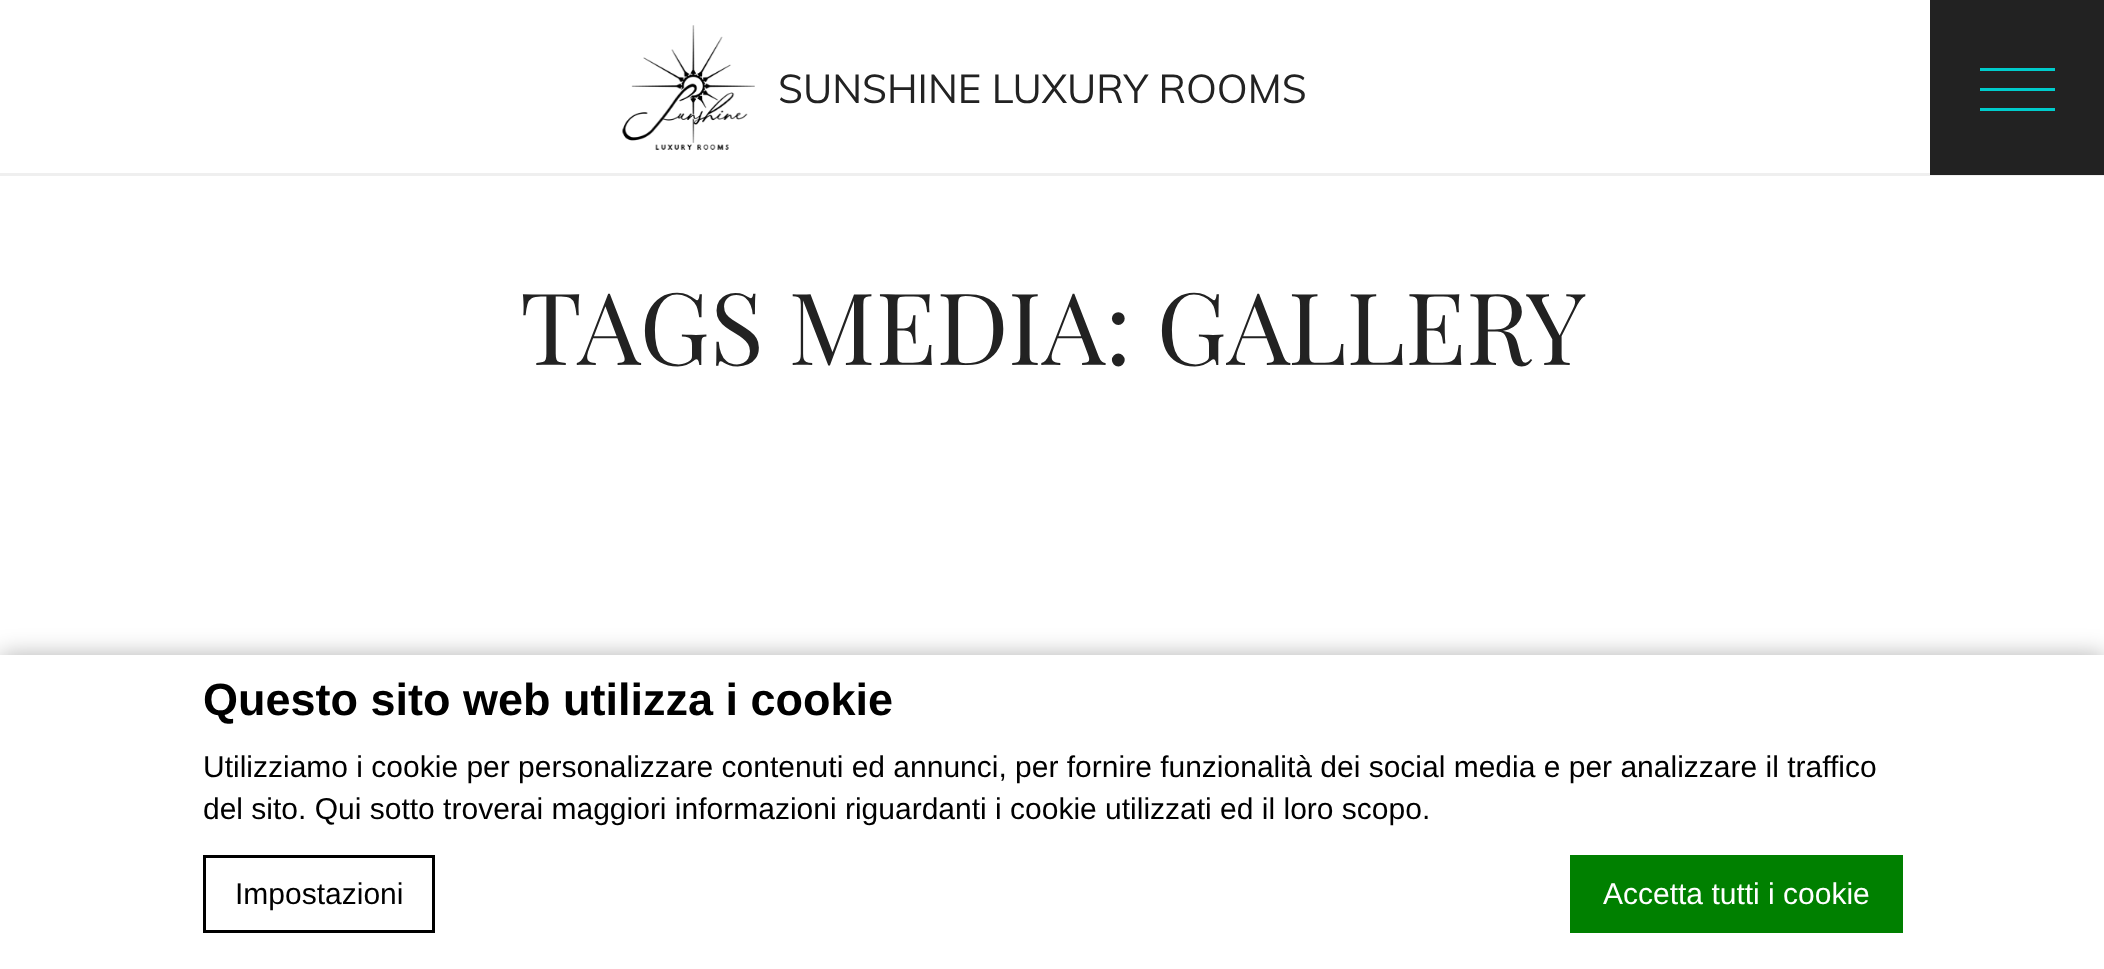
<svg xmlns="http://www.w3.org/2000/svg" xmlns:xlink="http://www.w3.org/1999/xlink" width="2104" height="969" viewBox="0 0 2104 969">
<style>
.cls-1{font:40px Muli;fill:#222222}
.cls-2{font:100px Playfair Display;fill:#222222}
.cls-3{font:bold 45px Liberation Sans;fill:#000000}
.cls-4{font:30px Liberation Sans;fill:#000000}
.cls-5{font:30px Liberation Sans;fill:#ffffff}
</style>
<rect width="100%" height="100%" fill="#ffffff"/>
<rect fill="#efefef" x="0" y="173" width="2104" height="3"/>
<image xlink:href="image0.png" x="622" y="25" width="133" height="125"/>
<rect fill="#222222" x="1930" y="0" width="174" height="175"/>
<rect fill="#00cccc" x="1980" y="88" width="75" height="3"/>
<rect fill="#00cccc" x="1980" y="68" width="75" height="3"/>
<rect fill="#00cccc" x="1980" y="108" width="75" height="3"/>
<rect fill="#000000" fill-opacity="0.3" filter="blur(12.5px)" x="0" y="655" width="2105" height="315"/>
<rect fill="#ffffff" x="0" y="655" width="2104" height="314"/>
<rect fill="none" stroke="#000000" stroke-width="3" x="204.5" y="856.5" width="229" height="75"/>
<rect fill="#008000" x="1570" y="855" width="333" height="78"/>
<text class="cls-1" x="778" y="103">SUNSHINE LUXURY ROOMS</text>
<text class="cls-2" x="520" y="365">TAGS MEDIA: GALLERY</text>
<text class="cls-3" x="203" y="715">Questo sito web utilizza i cookie</text>
<text class="cls-4"><tspan x="203" y="777">Utilizziamo i cookie per personalizzare contenuti ed annunci, per fornire funzionalità dei social media e per analizzare il traffico</tspan><tspan x="203" y="819">del sito. Qui sotto troverai maggiori informazioni riguardanti i cookie utilizzati ed il loro scopo.</tspan></text>
<text class="cls-4" x="235" y="904">Impostazioni</text>
<text class="cls-5" x="1603" y="904">Accetta tutti i cookie</text>
</svg>
